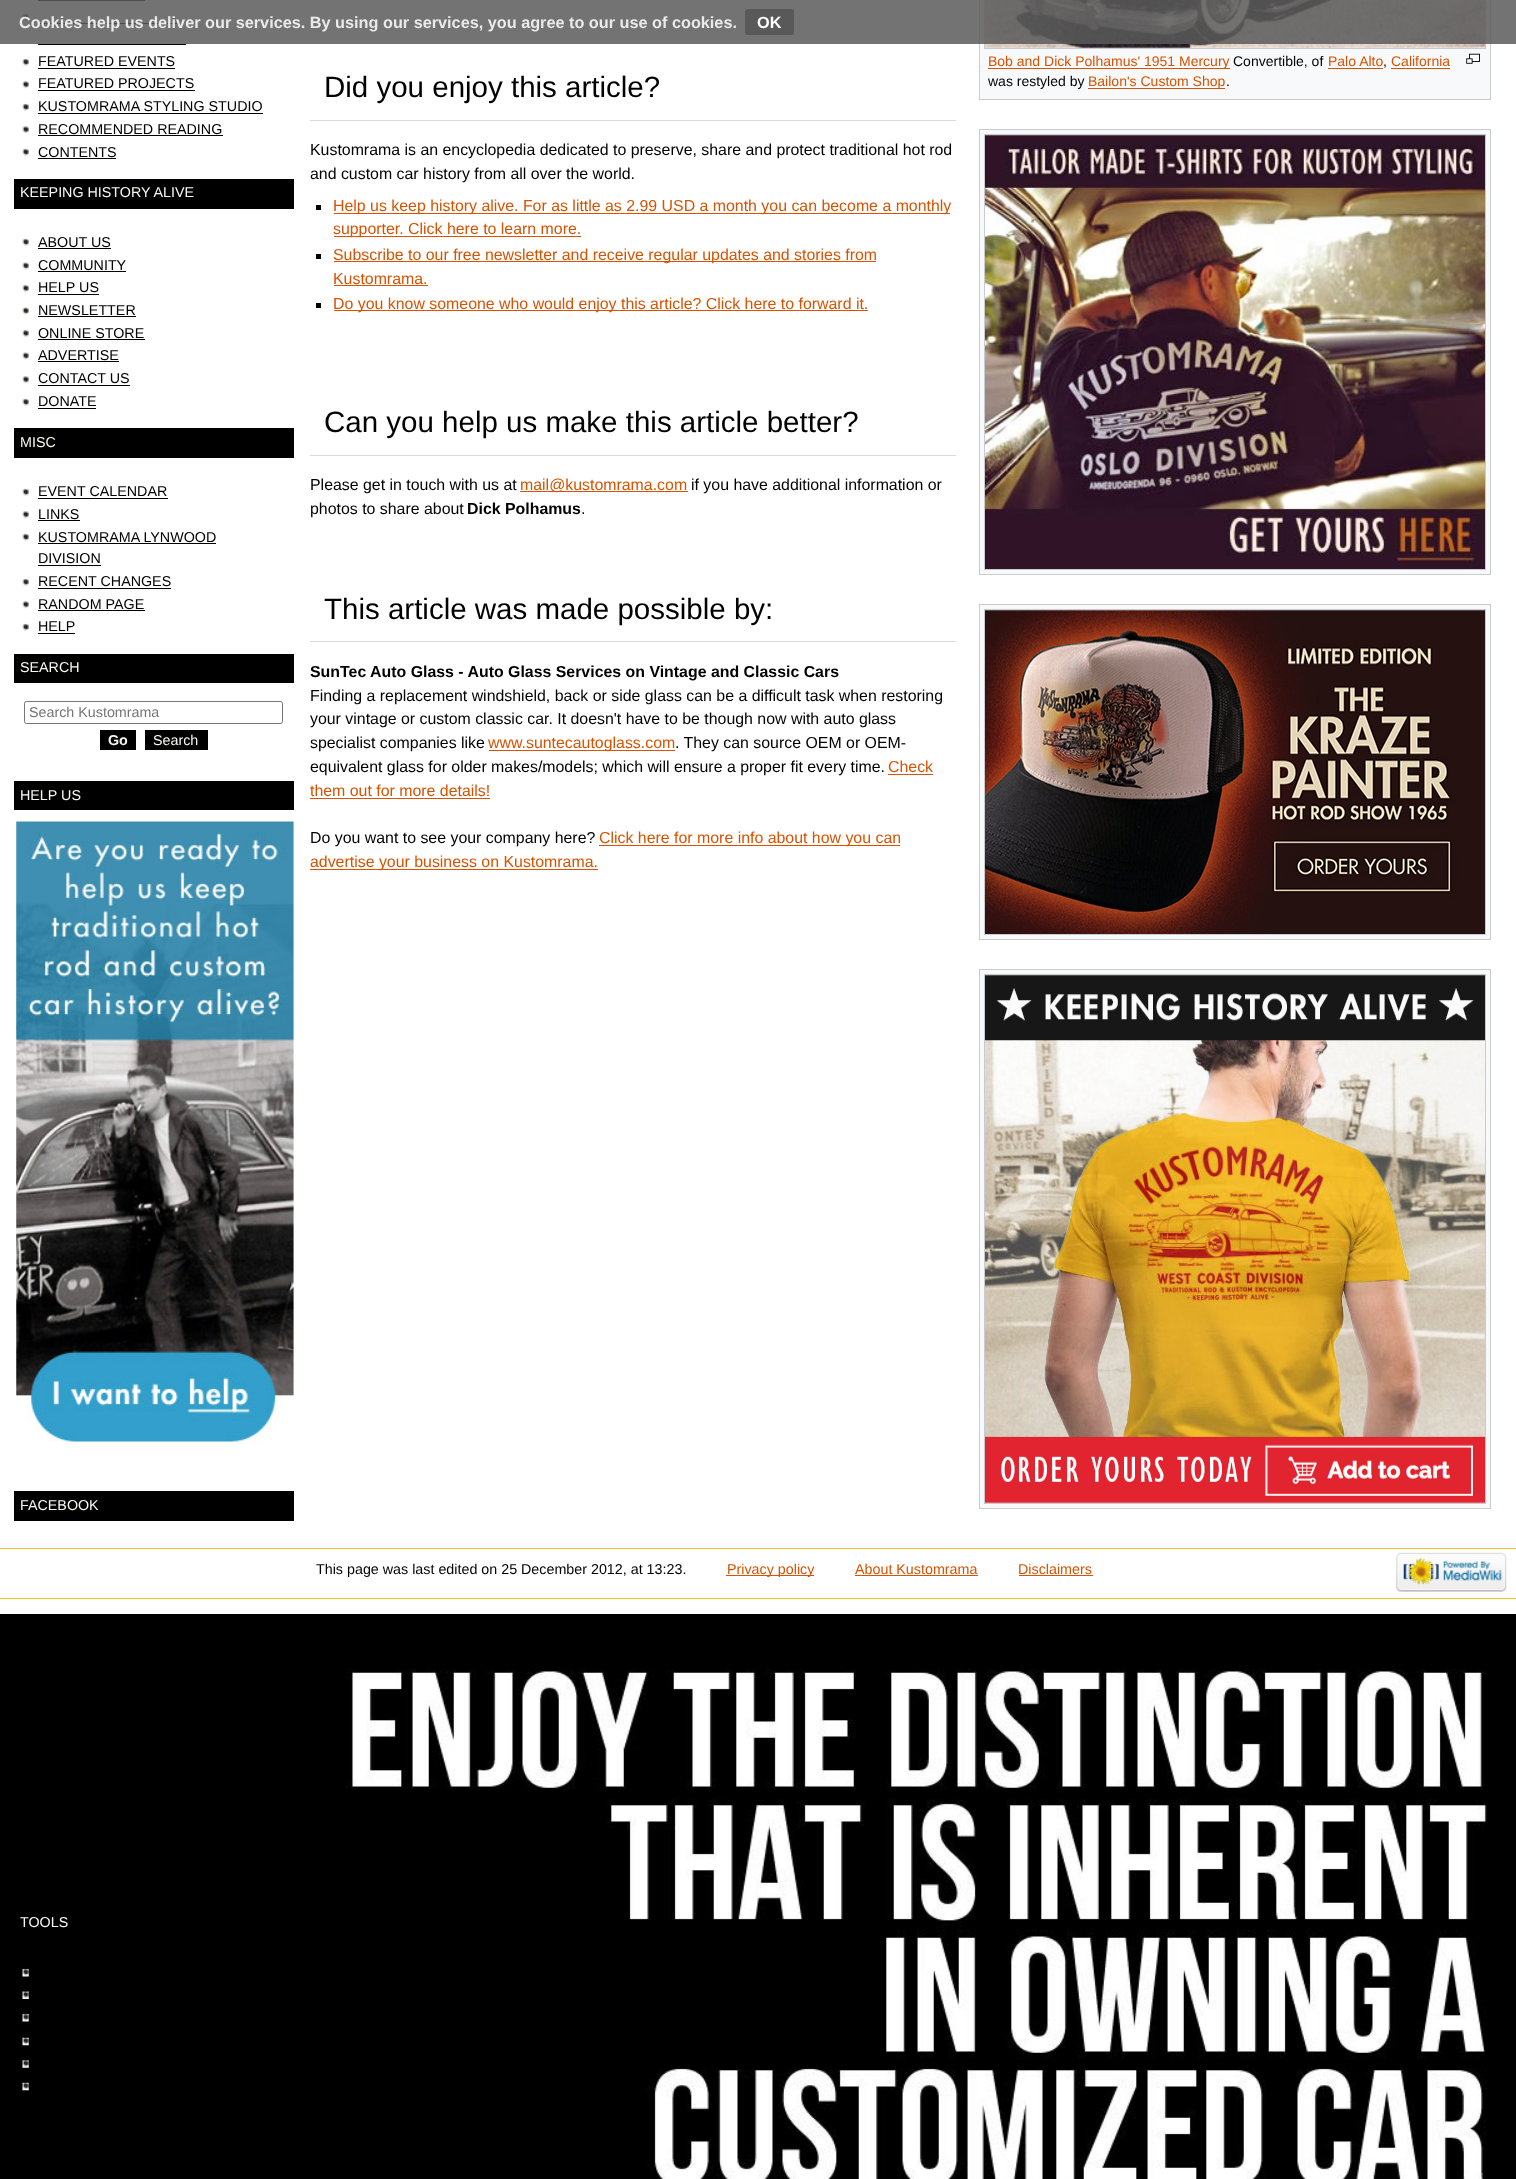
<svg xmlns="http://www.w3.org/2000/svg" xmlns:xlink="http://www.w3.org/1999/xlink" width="1516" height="2179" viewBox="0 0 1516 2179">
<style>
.cls-1{font:bold 16.25px Liberation Sans;fill:#eaeaea}
.cls-2{font:bold 16.25px Liberation Sans;fill:#ffffff}
.cls-3{font:14.3px Liberation Sans;fill:#000000}
.cls-4{font:14.3px Liberation Sans;fill:#f8f8f0}
.cls-5{font:14.3px Liberation Sans;fill:#757575}
.cls-6{font:bold 14.3px Liberation Sans;fill:#f8f8f0}
.cls-7{font:29.5px Liberation Sans;fill:#000000}
.cls-8{font:14px Liberation Sans;fill:#d75302}
.cls-9{font:14px Liberation Sans;fill:#000000}
.cls-10{font:15.9px Liberation Sans;fill:#000000}
.cls-11{font:15.9px Liberation Sans;fill:#d75302}
.cls-12{font:bold 15.9px Liberation Sans;fill:#000000}
.cls-13{font:14.3px Liberation Sans;fill:#d75302}
</style>
<rect width="100%" height="100%" fill="#ffffff"/>
<rect fill="#000000" x="38" y="0" width="107" height="1"/>
<image xlink:href="image0.png" x="22" y="13" width="7" height="9"/>
<rect fill="#000000" x="38" y="23" width="142" height="1"/>
<rect fill="#f8f9fa" stroke="#c8ccd1" x="979.5" y="-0.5" width="511" height="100"/>
<rect fill="none" stroke="#c8ccd1" x="984.5" y="-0.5" width="501" height="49"/>
<image xlink:href="image11.png" x="985" y="0" width="500" height="48"/>
<rect fill="#5a5a5a" fill-opacity="0.85" x="0" y="0" width="1516" height="44"/>
<rect fill="#595959" x="745" y="9" width="49" height="26" rx="2.5"/>
<rect fill="#000000" x="38" y="44" width="148" height="1"/>
<image xlink:href="image0.png" x="22" y="58" width="7" height="9"/>
<rect fill="#000000" x="38" y="68" width="137" height="1"/>
<image xlink:href="image1.png" x="22" y="81" width="7" height="8"/>
<rect fill="#000000" x="38" y="90" width="157" height="1"/>
<image xlink:href="image0.png" x="22" y="103" width="7" height="9"/>
<rect fill="#000000" x="38" y="113" width="225" height="1"/>
<image xlink:href="image1.png" x="22" y="126" width="7" height="8"/>
<rect fill="#000000" x="38" y="135" width="185" height="1"/>
<image xlink:href="image0.png" x="22" y="148" width="7" height="9"/>
<rect fill="#000000" x="38" y="158" width="78" height="1"/>
<rect fill="#000000" x="14" y="179" width="280" height="30"/>
<image xlink:href="image0.png" x="22" y="238" width="7" height="9"/>
<rect fill="#000000" x="38" y="248" width="73" height="1"/>
<image xlink:href="image2.png" x="22" y="262" width="7" height="8"/>
<rect fill="#000000" x="38" y="271" width="88" height="1"/>
<image xlink:href="image3.png" x="22" y="285" width="7" height="8"/>
<rect fill="#000000" x="38" y="294" width="61" height="1"/>
<image xlink:href="image4.png" x="22" y="307" width="7" height="8"/>
<rect fill="#000000" x="38" y="316" width="98" height="1"/>
<image xlink:href="image3.png" x="22" y="330" width="7" height="8"/>
<rect fill="#000000" x="38" y="339" width="107" height="1"/>
<image xlink:href="image2.png" x="22" y="352" width="7" height="8"/>
<rect fill="#000000" x="38" y="361" width="81" height="1"/>
<image xlink:href="image1.png" x="22" y="376" width="7" height="8"/>
<rect fill="#000000" x="38" y="385" width="92" height="1"/>
<image xlink:href="image0.png" x="22" y="398" width="7" height="9"/>
<rect fill="#000000" x="38" y="408" width="58" height="1"/>
<rect fill="#000000" x="14" y="428" width="280" height="30"/>
<image xlink:href="image0.png" x="22" y="488" width="7" height="9"/>
<rect fill="#000000" x="38" y="498" width="130" height="1"/>
<image xlink:href="image1.png" x="22" y="511" width="7" height="8"/>
<rect fill="#000000" x="38" y="520" width="42" height="1"/>
<image xlink:href="image0.png" x="22" y="533" width="7" height="9"/>
<rect fill="#000000" x="38" y="543" width="178" height="1"/>
<rect fill="#000000" x="38" y="565" width="63" height="1"/>
<image xlink:href="image0.png" x="22" y="578" width="7" height="9"/>
<rect fill="#000000" x="38" y="588" width="133" height="1"/>
<image xlink:href="image1.png" x="22" y="601" width="7" height="8"/>
<rect fill="#000000" x="38" y="610" width="107" height="1"/>
<image xlink:href="image0.png" x="22" y="623" width="7" height="9"/>
<rect fill="#000000" x="38" y="633" width="37" height="1"/>
<rect fill="#000000" x="14" y="654" width="280" height="29"/>
<rect fill="none" stroke="#767676" x="24.5" y="701.5" width="258" height="22" rx="2"/>
<rect fill="#000000" x="100" y="730" width="36" height="20"/>
<rect fill="#000000" x="145" y="730" width="63" height="20"/>
<rect fill="#000000" x="14" y="781" width="280" height="29"/>
<image xlink:href="image5.png" x="16" y="821" width="278" height="621"/>
<rect fill="#000000" x="14" y="1491" width="280" height="30"/>
<rect fill="#000000" x="0" y="1614" width="1516" height="565"/>
<image xlink:href="image6.png" x="22" y="1968" width="7" height="9"/>
<image xlink:href="image7.png" x="22" y="1991" width="7" height="8"/>
<image xlink:href="image8.png" x="22" y="2013" width="7" height="9"/>
<image xlink:href="image9.png" x="22" y="2037" width="7" height="9"/>
<image xlink:href="image10.png" x="22" y="2060" width="7" height="8"/>
<image xlink:href="image9.png" x="22" y="2082" width="7" height="9"/>
<rect fill="#d9d9d9" x="310" y="120" width="646" height="1"/>
<rect fill="#d75302" x="988" y="68" width="242" height="1"/>
<rect fill="#d75302" x="1328" y="68" width="55" height="1"/>
<rect fill="#d75302" x="1391" y="68" width="59" height="1"/>
<image xlink:href="image12.png" x="1466" y="53" width="14" height="11"/>
<rect fill="#d75302" x="1088" y="88" width="137" height="1"/>
<rect fill="#f8f9fa" stroke="#c8ccd1" x="979.5" y="129.5" width="511" height="445"/>
<rect fill="none" stroke="#c8ccd1" x="984.5" y="134.5" width="501" height="435"/>
<image xlink:href="image13.png" x="985" y="135" width="500" height="434"/>
<rect fill="#000000" x="316" y="205" width="5" height="5"/>
<rect fill="#d75302" x="334" y="213" width="616" height="1"/>
<rect fill="#d75302" x="334" y="236" width="247" height="1"/>
<rect fill="#000000" x="316" y="254" width="5" height="5"/>
<rect fill="#d75302" x="334" y="261" width="542" height="1"/>
<rect fill="#d75302" x="334" y="285" width="94" height="1"/>
<rect fill="#000000" x="316" y="303" width="5" height="5"/>
<rect fill="#d75302" x="334" y="310" width="534" height="1"/>
<rect fill="#d9d9d9" x="310" y="455" width="646" height="1"/>
<rect fill="#d75302" x="520" y="491" width="168" height="1"/>
<rect fill="#d9d9d9" x="310" y="641" width="646" height="1"/>
<rect fill="#f8f9fa" stroke="#c8ccd1" x="979.5" y="604.5" width="511" height="335"/>
<rect fill="none" stroke="#c8ccd1" x="984.5" y="609.5" width="501" height="325"/>
<image xlink:href="image14.png" x="985" y="610" width="500" height="324"/>
<rect fill="#d75302" x="489" y="750" width="186" height="1"/>
<rect fill="#d75302" x="888" y="774" width="45" height="1"/>
<rect fill="#d75302" x="310" y="798" width="180" height="1"/>
<rect fill="#d75302" x="599" y="845" width="301" height="1"/>
<rect fill="#d75302" x="310" y="869" width="288" height="1"/>
<rect fill="#f8f9fa" stroke="#c8ccd1" x="979.5" y="969.5" width="511" height="539"/>
<rect fill="none" stroke="#c8ccd1" x="984.5" y="974.5" width="501" height="529"/>
<image xlink:href="image15.png" x="985" y="975" width="500" height="528"/>
<rect fill="#fabd23" x="0" y="1548" width="1516" height="1"/>
<rect fill="#fabd23" x="0" y="1598" width="1516" height="1"/>
<rect fill="#d75302" x="726" y="1575" width="88" height="1"/>
<rect fill="#d75302" x="855" y="1575" width="123" height="1"/>
<rect fill="#d75302" x="1019" y="1575" width="74" height="1"/>
<image xlink:href="image16.png" x="1396" y="1552" width="111" height="40"/>
<image xlink:href="image17.png" x="346" y="1669" width="1141" height="510"/>
<text class="cls-1" x="19" y="28">Cookies help us deliver our services. By using our services, you agree to our use of cookies.</text>
<text class="cls-2" x="757" y="28">OK</text>
<text class="cls-3"><tspan x="38" y="66">FEATURED EVENTS</tspan><tspan x="38" y="88">FEATURED PROJECTS</tspan><tspan x="38" y="111">KUSTOMRAMA STYLING STUDIO</tspan><tspan x="38" y="134">RECOMMENDED READING</tspan><tspan x="38" y="157">CONTENTS</tspan></text>
<text class="cls-4" x="20" y="197">KEEPING HISTORY ALIVE</text>
<text class="cls-3"><tspan x="38" y="247">ABOUT US</tspan><tspan x="38" y="270">COMMUNITY</tspan><tspan x="38" y="292">HELP US</tspan><tspan x="38" y="315">NEWSLETTER</tspan><tspan x="38" y="338">ONLINE STORE</tspan><tspan x="38" y="360">ADVERTISE</tspan><tspan x="38" y="383">CONTACT US</tspan><tspan x="38" y="406">DONATE</tspan></text>
<text class="cls-4" x="20" y="447">MISC</text>
<text class="cls-3"><tspan x="38" y="496">EVENT CALENDAR</tspan><tspan x="38" y="519">LINKS</tspan><tspan x="38" y="542">KUSTOMRAMA LYNWOOD</tspan><tspan x="38" y="563">DIVISION</tspan><tspan x="38" y="586">RECENT CHANGES</tspan><tspan x="38" y="609">RANDOM PAGE</tspan><tspan x="38" y="631">HELP</tspan></text>
<text class="cls-4" x="20" y="672">SEARCH</text>
<text class="cls-5" x="29" y="717">Search Kustomrama</text>
<text class="cls-6" x="108" y="745">Go</text>
<text class="cls-4" x="153" y="745">Search</text>
<text class="cls-4" x="20" y="800">HELP US</text>
<text class="cls-4" x="20" y="1510">FACEBOOK</text>
<text class="cls-4" x="20" y="1927">TOOLS</text>
<text class="cls-7" x="324" y="97">Did you enjoy this article?</text>
<text class="cls-8" x="988" y="66">Bob and Dick Polhamus' 1951 Mercury</text>
<text class="cls-9" x="1233" y="66">Convertible, of</text>
<text class="cls-8" x="1328" y="66">Palo Alto</text>
<text class="cls-9" x="1383" y="66">,</text>
<text class="cls-8" x="1391" y="66">California</text>
<text class="cls-9" x="988" y="86">was restyled by</text>
<text class="cls-8" x="1088" y="86">Bailon's Custom Shop</text>
<text class="cls-9" x="1226" y="86">.</text>
<text class="cls-10"><tspan x="310" y="155">Kustomrama is an encyclopedia dedicated to preserve, share and protect traditional hot rod</tspan><tspan x="310" y="179">and custom car history from all over the world.</tspan></text>
<text class="cls-11"><tspan x="333" y="211">Help us keep history alive. For as little as 2.99 USD a month you can become a monthly</tspan><tspan x="333" y="234">supporter. Click here to learn more.</tspan><tspan x="333" y="260">Subscribe to our free newsletter and receive regular updates and stories from</tspan><tspan x="333" y="284">Kustomrama.</tspan><tspan x="333" y="309">Do you know someone who would enjoy this article? Click here to forward it.</tspan></text>
<text class="cls-7" x="324" y="432">Can you help us make this article better?</text>
<text class="cls-10" x="310" y="490">Please get in touch with us at</text>
<text class="cls-11" x="520" y="490">mail@kustomrama.com</text>
<text class="cls-10" x="691" y="490">if you have additional information or</text>
<text class="cls-10" x="310" y="514">photos to share about</text>
<text class="cls-12" x="467" y="514">Dick Polhamus</text>
<text class="cls-10" x="581" y="514">.</text>
<text class="cls-7" x="324" y="619">This article was made possible by:</text>
<text class="cls-12" x="310" y="677">SunTec Auto Glass - Auto Glass Services on Vintage and Classic Cars</text>
<text class="cls-10"><tspan x="310" y="701">Finding a replacement windshield, back or side glass can be a difficult task when restoring</tspan><tspan x="310" y="724">your vintage or custom classic car. It doesn't have to be though now with auto glass</tspan><tspan x="310" y="748">specialist companies like</tspan></text>
<text class="cls-11" x="488" y="748">www.suntecautoglass.com</text>
<text class="cls-10" x="675" y="748">. They can source OEM or OEM-</text>
<text class="cls-10" x="310" y="772">equivalent glass for older makes/models; which will ensure a proper fit every time.</text>
<text class="cls-11" x="888" y="772">Check</text>
<text class="cls-11" x="310" y="796">them out for more details!</text>
<text class="cls-10" x="310" y="843">Do you want to see your company here?</text>
<text class="cls-11" x="599" y="843">Click here for more info about how you can</text>
<text class="cls-11" x="310" y="867">advertise your business on Kustomrama.</text>
<text class="cls-3" x="316" y="1574">This page was last edited on 25 December 2012, at 13:23.</text>
<text class="cls-13" x="727" y="1574">Privacy policy</text>
<text class="cls-13" x="855" y="1574">About Kustomrama</text>
<text class="cls-13" x="1018" y="1574">Disclaimers</text>
</svg>
